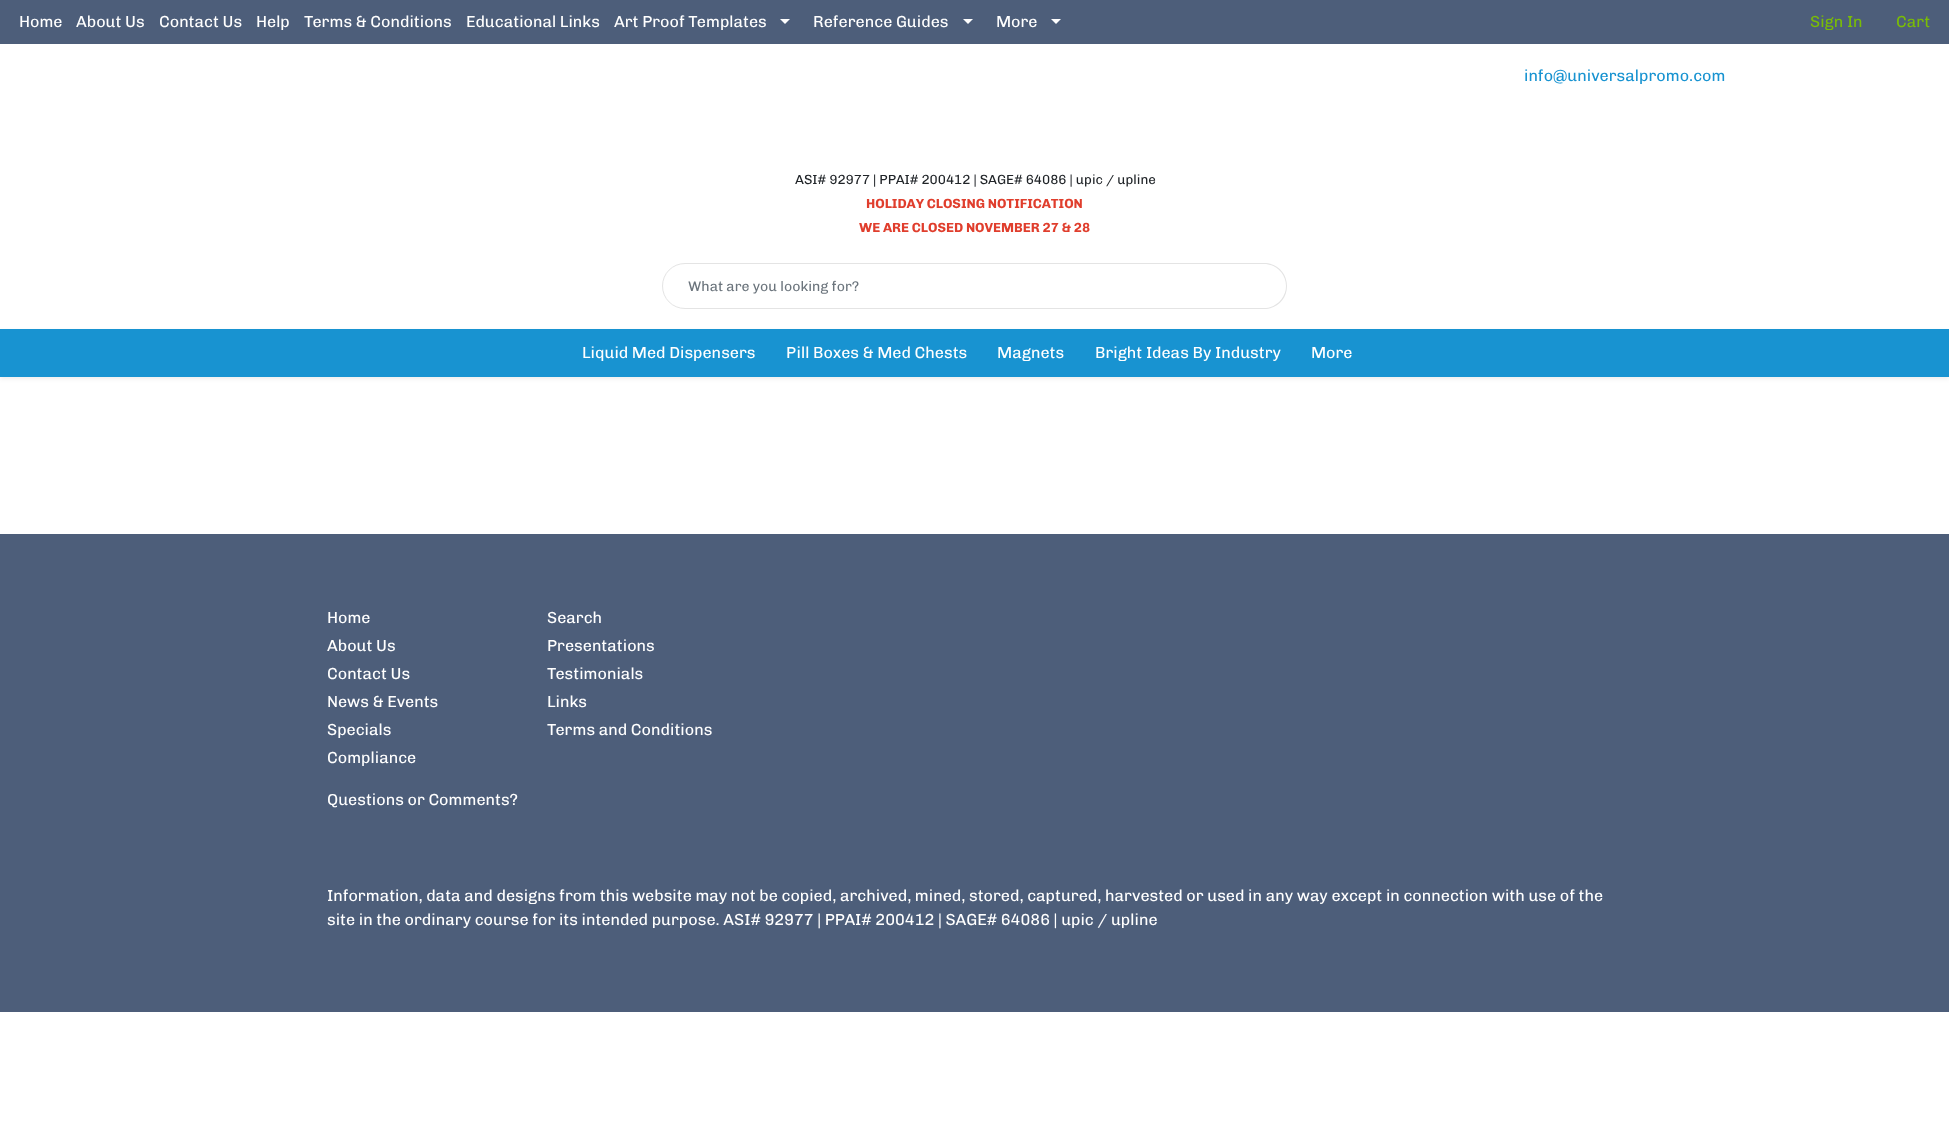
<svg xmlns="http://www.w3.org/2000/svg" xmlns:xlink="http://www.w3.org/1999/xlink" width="1949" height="1122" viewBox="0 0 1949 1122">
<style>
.cls-1{font:16px Chivo;fill:#ffffff}
.cls-2{font:16px Chivo;fill:#7abd05}
.cls-3{font:16px Chivo;fill:#1893d1}
.cls-4{font:13.3px Chivo;fill:#212529}
.cls-5{font:bold 13.3px Chivo;fill:#e03e2d}
.cls-6{font:14px Chivo;fill:#6c757d}
</style>
<rect width="100%" height="100%" fill="#ffffff"/>
<rect fill="#4d5e7a" x="0" y="0" width="1949" height="44"/>
<path fill="#ffffff" d="M780 19H790L785 24Z"/>
<path fill="#ffffff" d="M963 19H973L968 24Z"/>
<path fill="#ffffff" d="M1051 19H1061L1056 24Z"/>
<path fill="none" stroke="#e4e4e4" d="M685 263.5H1248.5V308.5H685C672.5 308.5 662.5 298.5 662.5 286C662.5 273.5 672.5 263.5 685 263.5Z"/>
<path fill="#ffffff" d="M1248 264H1264C1276 264 1286 274 1286 286C1286 298 1276 308 1264 308H1248Z"/>
<path fill="#e4e4e4" fill-rule="evenodd" d="M1248 263H1264C1277 263 1287 273 1287 286C1287 299 1277 309 1264 309H1248ZM1248 264H1264C1276 264 1286 274 1286 286C1286 298 1276 308 1264 308H1248Z"/>
<rect fill="#000000" fill-opacity="0.07" filter="blur(2px)" x="0" y="331" width="1949" height="48"/>
<rect fill="#1893d1" x="0" y="329" width="1949" height="48"/>
<rect fill="#4d5e7a" x="0" y="534" width="1949" height="478"/>
<text class="cls-1" x="19" y="27">Home</text>
<text class="cls-1" x="76" y="27">About Us</text>
<text class="cls-1" x="159" y="27">Contact Us</text>
<text class="cls-1" x="256" y="27">Help</text>
<text class="cls-1" x="304" y="27">Terms &amp; Conditions</text>
<text class="cls-1" x="466" y="27">Educational Links</text>
<text class="cls-1" x="614" y="27">Art Proof Templates</text>
<text class="cls-1" x="813" y="27">Reference Guides</text>
<text class="cls-1" x="996" y="27">More</text>
<text class="cls-2" x="1810" y="27">Sign In</text>
<text class="cls-2" x="1896" y="27">Cart</text>
<text class="cls-3" x="1524" y="81">info@universalpromo.com</text>
<text class="cls-4" x="795" y="184">ASI# 92977 | PPAI# 200412 | SAGE# 64086 | upic / upline</text>
<text class="cls-5" x="866" y="208">HOLIDAY CLOSING NOTIFICATION</text>
<text class="cls-5" x="859" y="232">WE ARE CLOSED NOVEMBER 27 &amp; 28</text>
<text class="cls-6" x="688" y="291">What are you looking for?</text>
<text class="cls-1" x="582" y="358">Liquid Med Dispensers</text>
<text class="cls-1" x="786" y="358">Pill Boxes &amp; Med Chests</text>
<text class="cls-1" x="997" y="358">Magnets</text>
<text class="cls-1" x="1095" y="358">Bright Ideas By Industry</text>
<text class="cls-1" x="1311" y="358">More</text>
<text class="cls-1"><tspan x="327" y="623">Home</tspan><tspan x="327" y="651">About Us</tspan><tspan x="327" y="679">Contact Us</tspan><tspan x="327" y="707">News &amp; Events</tspan><tspan x="327" y="735">Specials</tspan><tspan x="327" y="763">Compliance</tspan></text>
<text class="cls-1"><tspan x="547" y="623">Search</tspan><tspan x="547" y="651">Presentations</tspan><tspan x="547" y="679">Testimonials</tspan><tspan x="547" y="707">Links</tspan><tspan x="547" y="735">Terms and Conditions</tspan></text>
<text class="cls-1" x="327" y="805">Questions or Comments?</text>
<text class="cls-1"><tspan x="327" y="901">Information, data and designs from this website may not be copied, archived, mined, stored, captured, harvested or used in any way except in connection with use of the</tspan><tspan x="327" y="925">site in the ordinary course for its intended purpose. ASI# 92977 | PPAI# 200412 | SAGE# 64086 | upic / upline</tspan></text>
</svg>
